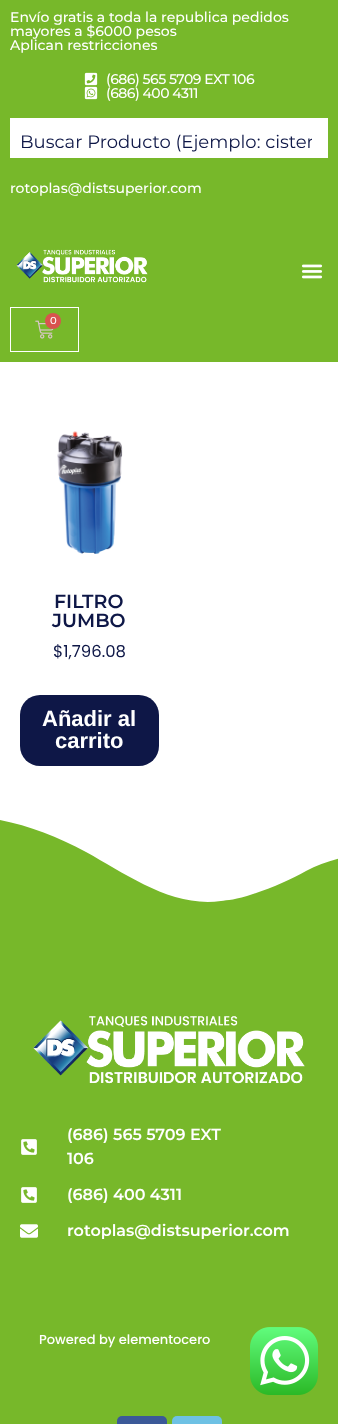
<svg xmlns="http://www.w3.org/2000/svg" xmlns:xlink="http://www.w3.org/1999/xlink" width="338" height="1424" viewBox="0 0 338 1424">
<style>
.cls-1{font:500 14px Montserrat;fill:#ffffff}
.cls-2{font:500 14px Montserrat;letter-spacing:-0.5px;fill:#ffffff}
.cls-3{font:18px Montserrat;fill:#0e1747}
.cls-4{font:500 10px Montserrat;fill:#ffffff}
.cls-5{font:600 19px Montserrat;fill:#0e1747}
.cls-6{font:16.5px Poppins;fill:#0e1747}
.cls-7{font:bold 22px Liberation Sans;fill:#ffffff}
.cls-8{font:600 16px Montserrat;fill:#ffffff}
.cls-9{font:500 13px Poppins;fill:#ffffff}
</style>
<defs>
<clipPath id="clip1"><rect x="20" y="131" width="292" height="22"/></clipPath>
</defs>
<rect width="100%" height="100%" fill="#ffffff"/>
<rect fill="#77b82a" x="0" y="0" width="338" height="362"/>
<image xlink:href="image0.png" x="84" y="72" width="14" height="14"/>
<image xlink:href="image1.png" x="84" y="86" width="14" height="14"/>
<rect fill="#ffffff" x="10" y="118" width="318" height="40"/>
<image xlink:href="image2.png" x="16" y="249" width="132" height="34"/>
<image xlink:href="image3.png" x="301" y="264" width="22" height="15"/>
<rect fill="none" stroke="#ffffff" x="10.5" y="307.5" width="68" height="44"/>
<image xlink:href="image4.png" x="35" y="320" width="19" height="19"/>
<circle fill="#d9534f" cx="53" cy="321" r="8"/>
<image xlink:href="image5.png" x="57" y="431" width="66" height="123"/>
<rect fill="#0e1747" x="20" y="695" width="139" height="71" rx="20"/>
<path fill="#77b82a" d="M221 901C172 908 126 874 86 852C34 824-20 810-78 817C-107 821-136 829-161 843V907H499V879C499 879 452 848 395 850C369 851 333 857 306 871C292 879 272 888 253 894C236 900 227 900 221 901Z"/>
<rect fill="#77b82a" x="0" y="907" width="338" height="517"/>
<image xlink:href="image6.png" x="33" y="1016" width="272" height="68"/>
<image xlink:href="image7.png" x="21" y="1139" width="16" height="16"/>
<image xlink:href="image7.png" x="21" y="1187" width="16" height="16"/>
<image xlink:href="image8.png" x="20" y="1224" width="18" height="14"/>
<rect fill="#3b5998" x="117" y="1416" width="50" height="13" rx="5"/>
<rect fill="#6ec1e4" x="172" y="1416" width="50" height="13" rx="5"/>
<image xlink:href="image9.png" x="250" y="1327" width="68" height="68"/>
<text class="cls-1"><tspan x="10" y="22">Envío gratis a toda la republica pedidos</tspan><tspan x="10" y="36">mayores a $6000 pesos</tspan><tspan x="10" y="50">Aplican restricciones</tspan></text>
<text class="cls-2"><tspan x="106" y="84">(686) 565 5709 EXT 106</tspan><tspan x="106" y="98">(686) 400 4311</tspan></text>
<g clip-path="url(#clip1)">
<text class="cls-3" x="20" y="148">Buscar Producto (Ejemplo: cister</text>
</g>
<text class="cls-1" x="10" y="193">rotoplas@distsuperior.com</text>
<text class="cls-4" x="50" y="324">0</text>
<text class="cls-5" x="54" y="608">FILTRO</text>
<text class="cls-5" x="52" y="627">JUMBO</text>
<text class="cls-6" x="53" y="657">$1,796.08</text>
<text class="cls-7" x="42" y="726">Añadir al</text>
<text class="cls-7" x="55" y="748">carrito</text>
<text class="cls-8"><tspan x="67" y="1140">(686) 565 5709 EXT</tspan><tspan x="67" y="1164">106</tspan></text>
<text class="cls-8" x="67" y="1200">(686) 400 4311</text>
<text class="cls-8" x="67" y="1236">rotoplas@distsuperior.com</text>
<text class="cls-9" x="39" y="1344">Powered by elementocero</text>
</svg>
